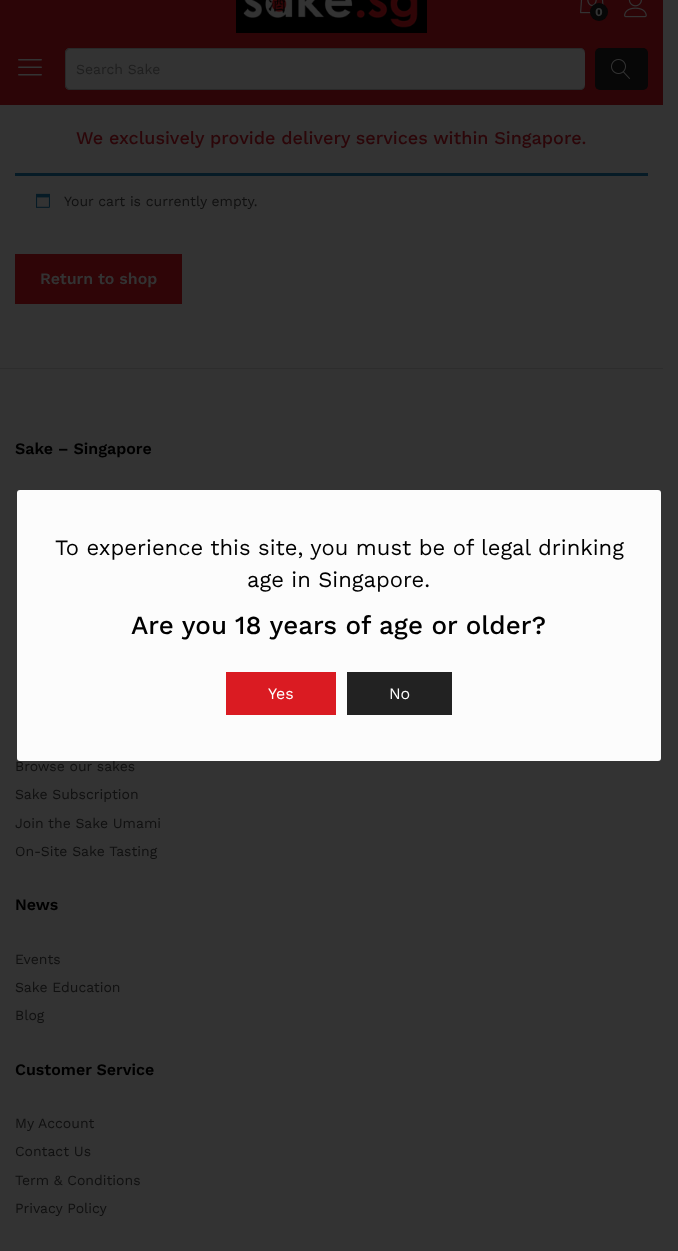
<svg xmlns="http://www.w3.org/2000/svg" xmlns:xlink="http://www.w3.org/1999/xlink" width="678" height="1251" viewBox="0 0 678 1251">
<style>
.cls-1{font:bold 12px Work Sans;fill:#333333}
.cls-2{font:14px Work Sans;fill:#1f1f1f}
.cls-3{font:500 18px Work Sans;fill:#2c0609}
.cls-4{font:14px Work Sans;fill:#101010}
.cls-5{font:600 16px Work Sans;fill:#333333}
.cls-6{font:600 16px Work Sans;fill:#000000}
.cls-7{font:22px Work Sans;fill:#000000}
.cls-8{font:500 26px Work Sans;fill:#000000}
.cls-9{font:16px Work Sans;fill:#fefefe}
</style>
<rect width="100%" height="100%" fill="#333333"/>
<rect fill="#2c0507" x="0" y="0" width="663" height="105"/>
<image xlink:href="image0.png" x="236" y="0" width="191" height="33"/>
<image xlink:href="image1.png" x="580" y="0" width="24" height="14"/>
<circle fill="#070707" cx="599" cy="12" r="9"/>
<image xlink:href="image2.png" x="624" y="0" width="23" height="18"/>
<image xlink:href="image3.png" x="18" y="59" width="24" height="17"/>
<rect fill="#333333" x="65" y="48" width="520" height="42" rx="5"/>
<path fill="#292929" fill-rule="evenodd" d="M70 48H580C583 48 585 50 585 53V85C585 88 583 90 580 90H70C67 90 65 88 65 85V53C65 50 67 48 70 48ZM70 49H580C583 49 585 51 585 53V85C585 87 583 89 580 89H70C68 89 66 87 66 85V53C66 51 68 49 70 49Z"/>
<rect fill="#070707" x="595" y="48" width="53" height="42" rx="5"/>
<image xlink:href="image4.png" x="611" y="59" width="19" height="20"/>
<rect fill="#061b26" x="15" y="173" width="633" height="3"/>
<image xlink:href="image5.png" x="36" y="193" width="14" height="15"/>
<rect fill="#2f0507" x="15" y="254" width="167" height="50"/>
<rect fill="#2d2d2d" x="0" y="368" width="663" height="1"/>
<image xlink:href="image6.png" x="19" y="637" width="10" height="19"/>
<image xlink:href="image7.png" x="54" y="639" width="16" height="16"/>
<image xlink:href="image8.png" x="91" y="638" width="18" height="19"/>
<image xlink:href="image9.png" x="130" y="638" width="16" height="18"/>
<text class="cls-1" x="595" y="16">0</text>
<text class="cls-2" x="76" y="74">Search Sake</text>
<text class="cls-3" x="76" y="144">We exclusively provide delivery services within Singapore.</text>
<text class="cls-4" x="64" y="206">Your cart is currently empty.</text>
<text class="cls-5" x="40" y="284">Return to shop</text>
<text class="cls-6" x="15" y="454">Sake – Singapore</text>
<text class="cls-4" x="15" y="771">Browse our sakes</text>
<text class="cls-4" x="15" y="799">Sake Subscription</text>
<text class="cls-4" x="15" y="828">Join the Sake Umami</text>
<text class="cls-4" x="15" y="856">On-Site Sake Tasting</text>
<text class="cls-6" x="15" y="910">News</text>
<text class="cls-4" x="15" y="964">Events</text>
<text class="cls-4" x="15" y="992">Sake Education</text>
<text class="cls-4" x="15" y="1020">Blog</text>
<text class="cls-6" x="15" y="1075">Customer Service</text>
<text class="cls-4" x="15" y="1128">My Account</text>
<text class="cls-4" x="15" y="1156">Contact Us</text>
<text class="cls-4" x="15" y="1185">Term &amp; Conditions</text>
<text class="cls-4" x="15" y="1213">Privacy Policy</text>
<rect fill="#ffffff" fill-opacity="0.99" x="17" y="490" width="644" height="271" rx="3"/>
<text class="cls-7" x="55" y="555">To experience this site, you must be of legal drinking</text>
<text class="cls-7" x="247" y="587">age in Singapore.</text>
<text class="cls-8" x="131" y="634">Are you 18 years of age or older?</text>
<rect fill="#da1b22" x="226" y="672" width="110" height="43"/>
<text class="cls-9" x="268" y="699">Yes</text>
<rect fill="#222222" x="347" y="672" width="105" height="43"/>
<text class="cls-9" x="389" y="699">No</text>
</svg>
